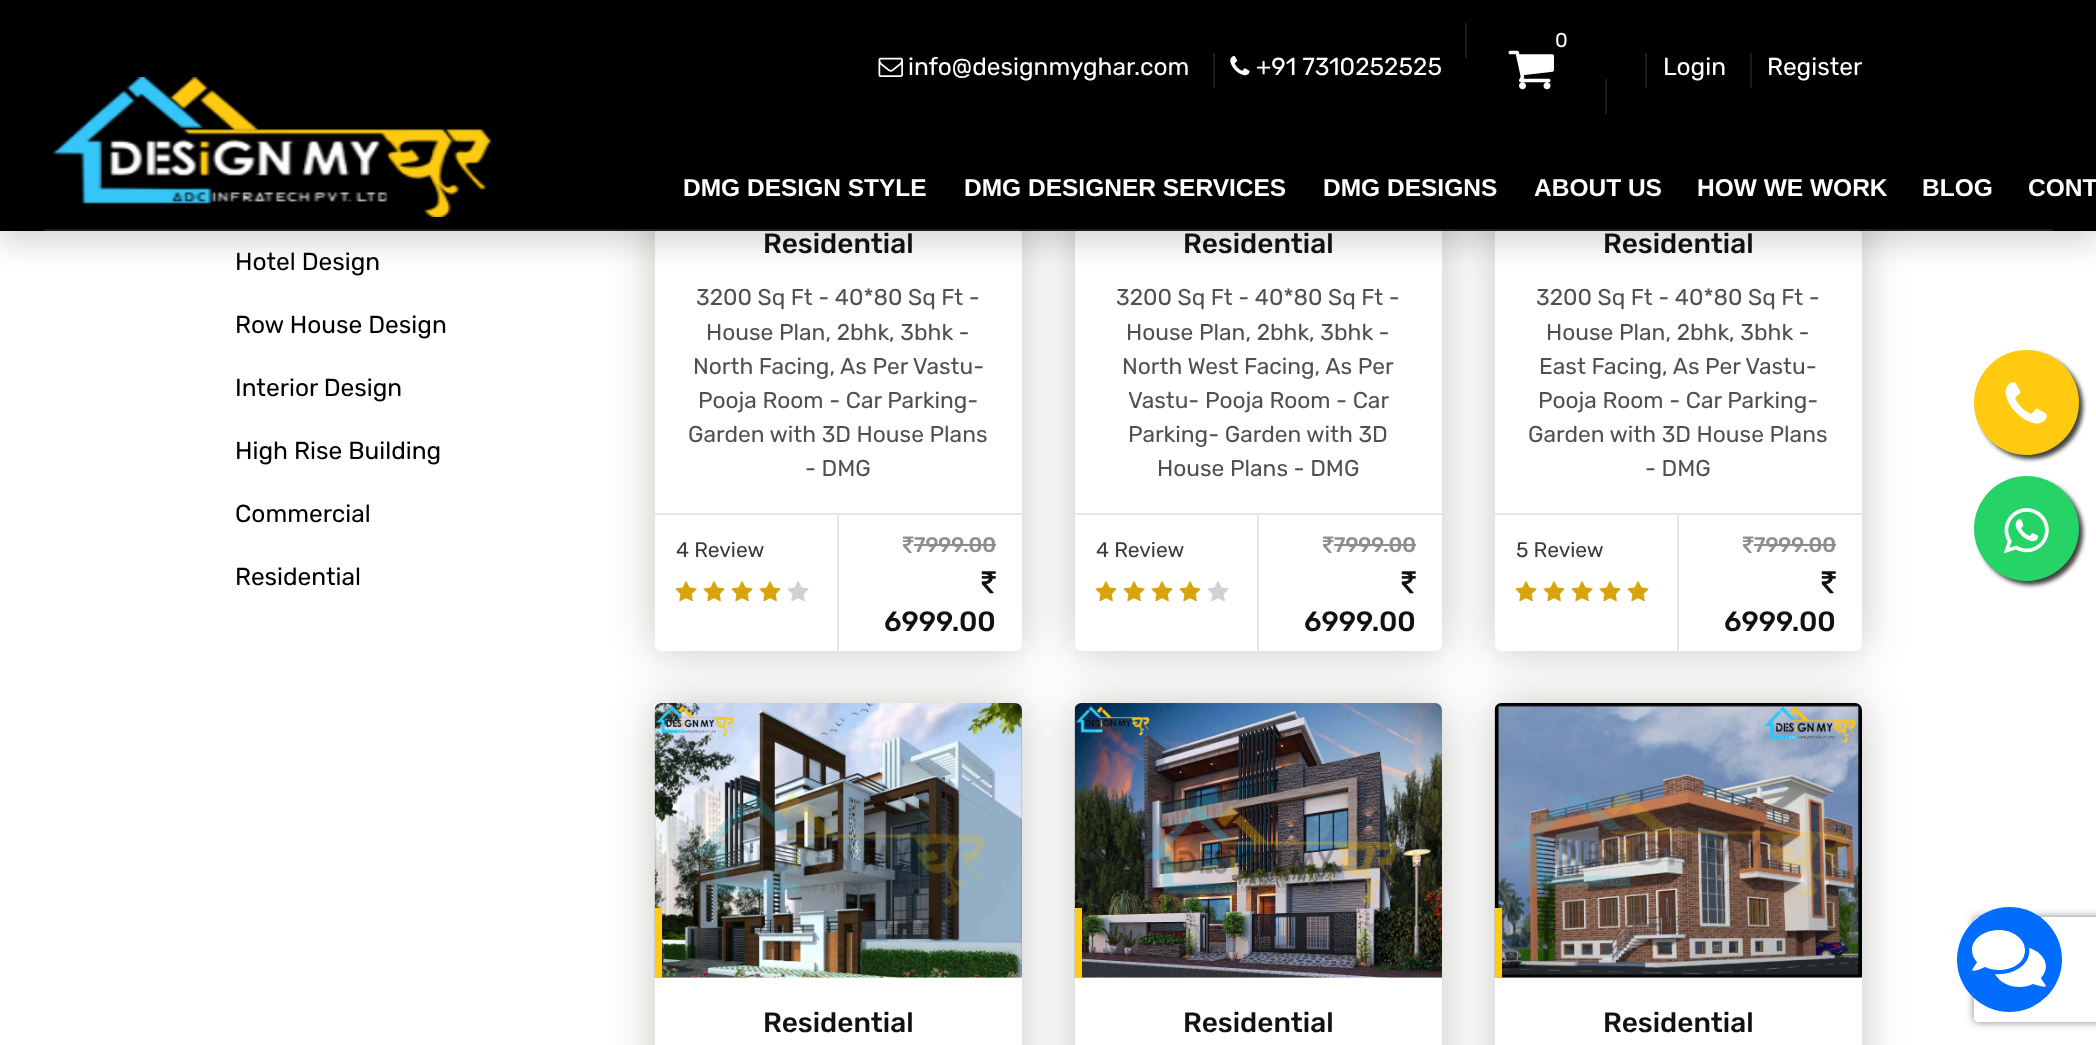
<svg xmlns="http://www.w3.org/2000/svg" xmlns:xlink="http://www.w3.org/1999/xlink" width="2096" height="1045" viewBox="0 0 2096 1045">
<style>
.cls-1{font:20px Rubik;fill:#ffffff}
.cls-2{font:24.5px Rubik;fill:#ffffff}
.cls-3{font:bold 24.5px Liberation Sans;fill:#ffffff}
.cls-4{font:24.5px Rubik;fill:#000000}
.cls-5{font:500 28px Rubik;fill:#111111}
.cls-6{font:22.75px Rubik;fill:#505050}
.cls-7{font:21px Rubik;fill:#3c3c3c}
.cls-8{font:500 21px Rubik;fill:#8e8e8e}
</style>
<defs>
<clipPath id="clip1"><path d="M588 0H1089V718H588ZM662-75H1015C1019-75 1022-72 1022-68V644C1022 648 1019 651 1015 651H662C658 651 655 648 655 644V-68C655-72 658-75 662-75Z" clip-rule="evenodd"/></clipPath>
<clipPath id="clip2"><path d="M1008 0H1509V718H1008ZM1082-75H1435C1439-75 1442-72 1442-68V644C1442 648 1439 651 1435 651H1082C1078 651 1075 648 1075 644V-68C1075-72 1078-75 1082-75Z" clip-rule="evenodd"/></clipPath>
<clipPath id="clip3"><path d="M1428 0H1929V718H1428ZM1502-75H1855C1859-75 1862-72 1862-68V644C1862 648 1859 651 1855 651H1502C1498 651 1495 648 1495 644V-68C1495-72 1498-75 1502-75Z" clip-rule="evenodd"/></clipPath>
<clipPath id="clip4"><path d="M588 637H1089V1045H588ZM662 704H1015C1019 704 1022 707 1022 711V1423C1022 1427 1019 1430 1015 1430H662C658 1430 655 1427 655 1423V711C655 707 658 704 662 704Z" clip-rule="evenodd"/></clipPath>
<clipPath id="clip5"><path d="M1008 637H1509V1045H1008ZM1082 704H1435C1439 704 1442 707 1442 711V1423C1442 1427 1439 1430 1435 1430H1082C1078 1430 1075 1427 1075 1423V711C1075 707 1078 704 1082 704Z" clip-rule="evenodd"/></clipPath>
<clipPath id="clip6"><path d="M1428 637H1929V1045H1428ZM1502 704H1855C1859 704 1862 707 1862 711V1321C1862 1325 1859 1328 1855 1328H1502C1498 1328 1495 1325 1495 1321V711C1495 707 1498 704 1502 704Z" clip-rule="evenodd"/></clipPath>
<clipPath id="clip7"><path d="M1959 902H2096V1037H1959ZM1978 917H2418C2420 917 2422 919 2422 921V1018C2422 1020 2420 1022 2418 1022H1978C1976 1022 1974 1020 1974 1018V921C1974 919 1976 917 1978 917Z" clip-rule="evenodd"/></clipPath>
</defs>
<rect width="100%" height="100%" fill="#ffffff"/>
<rect fill="#000000" fill-opacity="0.15" filter="blur(14px)" x="0" y="14" width="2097" height="231"/>
<g clip-path="url(#clip1)">
<rect fill="#1d1900" fill-opacity="0.25" filter="blur(22px)" x="655" y="-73" width="367" height="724" rx="7"/>
</g>
<rect fill="#e6e6e6" x="655" y="513" width="367" height="2"/>
<g clip-path="url(#clip2)">
<rect fill="#1d1900" fill-opacity="0.25" filter="blur(22px)" x="1075" y="-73" width="367" height="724" rx="7"/>
</g>
<rect fill="#e6e6e6" x="1075" y="513" width="367" height="2"/>
<g clip-path="url(#clip3)">
<rect fill="#1d1900" fill-opacity="0.25" filter="blur(22px)" x="1495" y="-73" width="367" height="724" rx="7"/>
</g>
<rect fill="#000000" x="0" y="0" width="2096" height="231"/>
<rect fill="#1a1a1a" x="1465" y="23" width="2" height="35"/>
<image xlink:href="image0.png" x="1508" y="50" width="46" height="40"/>
<image xlink:href="image1.png" x="878" y="57" width="25" height="20"/>
<rect fill="#1a1a1a" x="1213" y="53" width="2" height="35"/>
<image xlink:href="image2.png" x="1230" y="56" width="20" height="20"/>
<rect fill="#1a1a1a" x="1645" y="53" width="2" height="35"/>
<rect fill="#1a1a1a" x="1750" y="53" width="2" height="35"/>
<rect fill="#1a1a1a" x="1605" y="79" width="2" height="35"/>
<rect fill="#1a1a1a" x="44" y="229" width="2009" height="2"/>
<image xlink:href="image3.png" x="52" y="77" width="440" height="140"/>
<rect fill="#e6e6e6" x="837" y="515" width="2" height="136"/>
<image xlink:href="image4.png" x="675" y="581" width="22" height="21"/>
<image xlink:href="image4.png" x="703" y="581" width="22" height="21"/>
<image xlink:href="image4.png" x="731" y="581" width="22" height="21"/>
<image xlink:href="image4.png" x="759" y="581" width="22" height="21"/>
<image xlink:href="image5.png" x="787" y="581" width="22" height="21"/>
<image xlink:href="image6.png" x="903" y="536" width="11" height="17"/>
<rect fill="#8e8e8e" x="914" y="544" width="82" height="2"/>
<image xlink:href="image7.png" x="981" y="571" width="15" height="23"/>
<rect fill="#e6e6e6" x="1257" y="515" width="2" height="136"/>
<image xlink:href="image4.png" x="1095" y="581" width="22" height="21"/>
<image xlink:href="image4.png" x="1123" y="581" width="22" height="21"/>
<image xlink:href="image4.png" x="1151" y="581" width="22" height="21"/>
<image xlink:href="image4.png" x="1179" y="581" width="22" height="21"/>
<image xlink:href="image5.png" x="1207" y="581" width="22" height="21"/>
<image xlink:href="image6.png" x="1323" y="536" width="11" height="17"/>
<rect fill="#8e8e8e" x="1334" y="544" width="82" height="2"/>
<image xlink:href="image7.png" x="1401" y="571" width="15" height="23"/>
<rect fill="#e6e6e6" x="1495" y="513" width="367" height="2"/>
<rect fill="#e6e6e6" x="1677" y="515" width="2" height="136"/>
<image xlink:href="image4.png" x="1515" y="581" width="22" height="21"/>
<image xlink:href="image4.png" x="1543" y="581" width="22" height="21"/>
<image xlink:href="image4.png" x="1571" y="581" width="22" height="21"/>
<image xlink:href="image4.png" x="1599" y="581" width="22" height="21"/>
<image xlink:href="image4.png" x="1627" y="581" width="22" height="21"/>
<image xlink:href="image6.png" x="1743" y="536" width="11" height="17"/>
<rect fill="#8e8e8e" x="1754" y="544" width="82" height="2"/>
<image xlink:href="image7.png" x="1821" y="571" width="15" height="23"/>
<g clip-path="url(#clip4)">
<rect fill="#1d1900" fill-opacity="0.25" filter="blur(22px)" x="655" y="704" width="367" height="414" rx="7"/>
</g>
<image xlink:href="image8.png" x="654" y="703" width="368" height="275"/>
<rect fill="#ffca10" x="655" y="908" width="7" height="70"/>
<g clip-path="url(#clip5)">
<rect fill="#1d1900" fill-opacity="0.25" filter="blur(22px)" x="1075" y="704" width="367" height="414" rx="7"/>
</g>
<image xlink:href="image9.png" x="1074" y="703" width="368" height="275"/>
<rect fill="#ffca10" x="1075" y="908" width="7" height="70"/>
<g clip-path="url(#clip6)">
<rect fill="#1d1900" fill-opacity="0.25" filter="blur(22px)" x="1495" y="704" width="367" height="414" rx="7"/>
</g>
<image xlink:href="image10.png" x="1494" y="703" width="368" height="275"/>
<rect fill="#ffca10" x="1495" y="908" width="7" height="70"/>
<rect fill="#434242" filter="blur(2px)" x="1978" y="354" width="105" height="105" rx="52.5"/>
<circle fill="#ffca10" cx="2026.5" cy="402.5" r="52.5"/>
<image xlink:href="image11.png" x="2005" y="382" width="42" height="42"/>
<rect fill="#434242" filter="blur(2px)" x="1978" y="480" width="105" height="105" rx="52.5"/>
<circle fill="#25d366" cx="2026.5" cy="528.5" r="52.5"/>
<image xlink:href="image12.png" x="2003" y="508" width="46" height="46"/>
<g clip-path="url(#clip7)">
<rect fill="#808080" filter="blur(4.5px)" x="1974" y="917" width="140" height="105" rx="4"/>
</g>
<circle fill="#006dff" cx="2009.5" cy="959.5" r="52.5"/>
<path fill="#ffffff" d="M2025 950C2025 939 2013 930 1999 930C1984 930 1972 939 1972 950C1972 955 1974 959 1977 962C1975 967 1967 973 1978 970L1985 967C1999 974 2025 969 2025 950ZM2041 978C2052 966 2043 952 2029 948C2032 966 2010 976 1995 974C2002 987 2021 990 2033 984L2040 986C2051 989 2043 983 2041 978Z"/>
<text class="cls-1" x="1555" y="47">0</text>
<text class="cls-2" x="908" y="75">info@designmyghar.com</text>
<text class="cls-2" x="1256" y="75">+91 7310252525</text>
<text class="cls-2" x="1663" y="75">Login</text>
<text class="cls-2" x="1767" y="75">Register</text>
<text class="cls-3" x="683" y="196">DMG DESIGN STYLE</text>
<text class="cls-3" x="964" y="196">DMG DESIGNER SERVICES</text>
<text class="cls-3" x="1323" y="196">DMG DESIGNS</text>
<text class="cls-3" x="1534" y="196">ABOUT US</text>
<text class="cls-3" x="1697" y="196">HOW WE WORK</text>
<text class="cls-3" x="1922" y="196">BLOG</text>
<text class="cls-3" x="2028" y="196">CONT</text>
<text class="cls-4" x="235" y="270">Hotel Design</text>
<text class="cls-4" x="235" y="333">Row House Design</text>
<text class="cls-4" x="235" y="396">Interior Design</text>
<text class="cls-4" x="235" y="459">High Rise Building</text>
<text class="cls-4" x="235" y="522">Commercial</text>
<text class="cls-4" x="235" y="585">Residential</text>
<text class="cls-5" x="763" y="253">Residential</text>
<text class="cls-6" x="696" y="305">3200 Sq Ft - 40*80 Sq Ft -</text>
<text class="cls-6" x="706" y="340">House Plan, 2bhk, 3bhk -</text>
<text class="cls-6" x="693" y="374">North Facing, As Per Vastu-</text>
<text class="cls-6" x="698" y="408">Pooja Room - Car Parking-</text>
<text class="cls-6" x="688" y="442">Garden with 3D House Plans</text>
<text class="cls-6" x="805" y="476">- DMG</text>
<text class="cls-7" x="676" y="557">4 Review</text>
<text class="cls-8" x="914" y="552">7999.00</text>
<text class="cls-5" x="884" y="631">6999.00</text>
<text class="cls-5" x="1183" y="253">Residential</text>
<text class="cls-6" x="1116" y="305">3200 Sq Ft - 40*80 Sq Ft -</text>
<text class="cls-6" x="1126" y="340">House Plan, 2bhk, 3bhk -</text>
<text class="cls-6" x="1122" y="374">North West Facing, As Per</text>
<text class="cls-6"><tspan x="1128" y="408">Vastu- Pooja Room - Car</tspan><tspan x="1128" y="442">Parking- Garden with 3D</tspan></text>
<text class="cls-6" x="1157" y="476">House Plans - DMG</text>
<text class="cls-7" x="1096" y="557">4 Review</text>
<text class="cls-8" x="1334" y="552">7999.00</text>
<text class="cls-5" x="1304" y="631">6999.00</text>
<text class="cls-5" x="1603" y="253">Residential</text>
<text class="cls-6" x="1536" y="305">3200 Sq Ft - 40*80 Sq Ft -</text>
<text class="cls-6" x="1546" y="340">House Plan, 2bhk, 3bhk -</text>
<text class="cls-6" x="1539" y="374">East Facing, As Per Vastu-</text>
<text class="cls-6" x="1538" y="408">Pooja Room - Car Parking-</text>
<text class="cls-6" x="1528" y="442">Garden with 3D House Plans</text>
<text class="cls-6" x="1645" y="476">- DMG</text>
<text class="cls-7" x="1516" y="557">5 Review</text>
<text class="cls-8" x="1754" y="552">7999.00</text>
<text class="cls-5" x="1724" y="631">6999.00</text>
<text class="cls-5" x="763" y="1032">Residential</text>
<text class="cls-5" x="1183" y="1032">Residential</text>
<text class="cls-5" x="1603" y="1032">Residential</text>
</svg>
